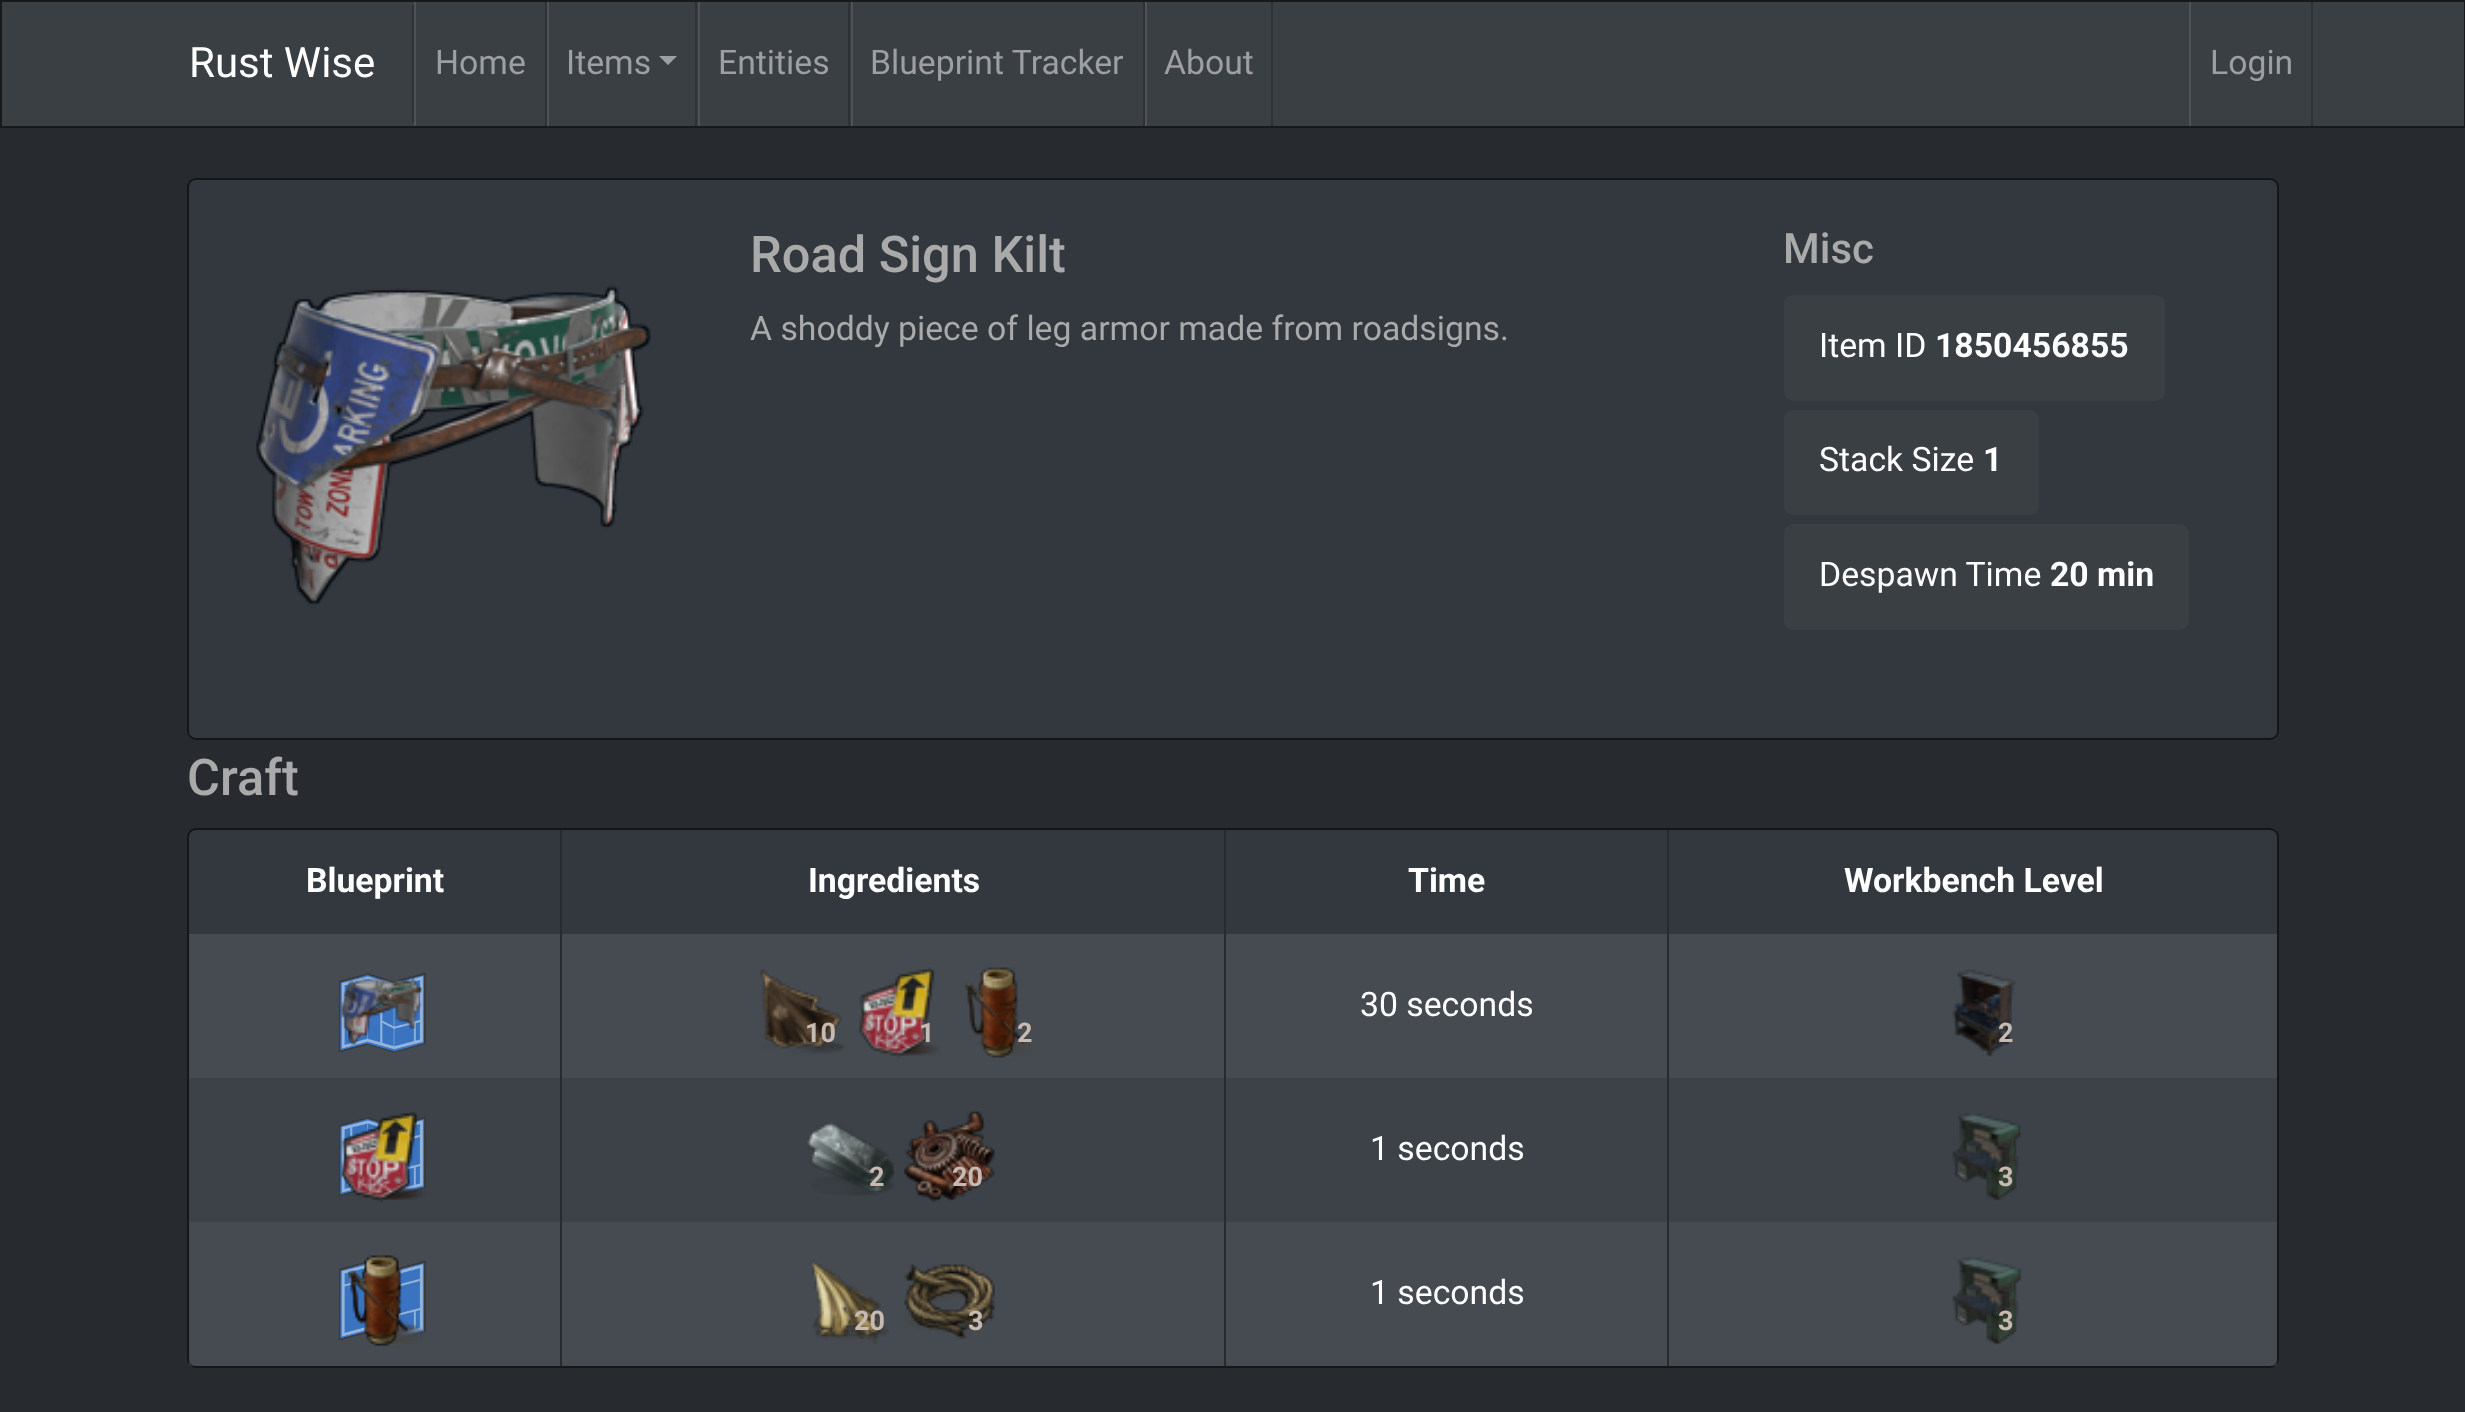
<svg xmlns="http://www.w3.org/2000/svg" xmlns:xlink="http://www.w3.org/1999/xlink" width="2465" height="1412" viewBox="0 0 2465 1412">
<style>
.cls-1{font:42px Roboto;fill:#ffffff}
.cls-2{font:33.75px Roboto;fill:#9d9fa2}
.cls-3{font:500 50.5px Roboto;fill:#aaaaaa}
.cls-4{font:33.75px Roboto;fill:#aaaaaa}
.cls-5{font:500 42px Roboto;fill:#aaaaaa}
.cls-6{font:33.75px Roboto;fill:#ffffff}
.cls-7{font:bold 33.75px Roboto;fill:#ffffff}
.cls-8{font:bold 27px Roboto;fill:#c7bab2}
</style>
<rect width="100%" height="100%" fill="#272b30"/>
<rect fill="#3a3f44" stroke="#17191b" stroke-width="2" x="1" y="1" width="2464" height="126"/>
<rect fill="#2e3236" x="412" y="5" width="2" height="117"/>
<rect fill="#2e3236" x="545" y="2" width="2" height="124"/>
<rect fill="#4e5257" x="414" y="2" width="2" height="124"/>
<rect fill="#2e3236" x="695" y="2" width="2" height="124"/>
<rect fill="#4e5257" x="547" y="2" width="2" height="124"/>
<path fill="#9d9fa2" d="M659 56H677L668 65Z"/>
<rect fill="#2e3236" x="848" y="2" width="2" height="124"/>
<rect fill="#4e5257" x="698" y="2" width="2" height="124"/>
<rect fill="#2e3236" x="1143" y="2" width="2" height="124"/>
<rect fill="#4e5257" x="851" y="2" width="2" height="124"/>
<rect fill="#2e3236" x="1271" y="2" width="2" height="124"/>
<rect fill="#4e5257" x="1145" y="2" width="2" height="124"/>
<rect fill="#2e3236" x="2311" y="2" width="2" height="124"/>
<rect fill="#4e5257" x="2189" y="2" width="2" height="124"/>
<rect fill="#32383e" x="187" y="178" width="2092" height="562" rx="9"/>
<rect fill="none" stroke="#000000" stroke-opacity="0.6" stroke-width="2" x="188" y="179" width="2090" height="560" rx="8"/>
<image xlink:href="image0.png" x="256" y="285" width="395" height="320"/>
<rect fill="#3a3f44" x="1784" y="295" width="381" height="106" rx="9"/>
<rect fill="#3a3f44" x="1784" y="410" width="255" height="105" rx="9"/>
<rect fill="#3a3f44" x="1784" y="524" width="405" height="106" rx="9"/>
<rect fill="#32383e" x="187" y="828" width="2092" height="540" rx="9"/>
<rect fill="none" stroke="#000000" stroke-opacity="0.6" stroke-width="2" x="188" y="829" width="2090" height="538" rx="8"/>
<rect fill="#464b51" x="189" y="934" width="1035" height="144"/>
<image xlink:href="image1.png" x="339" y="972" width="87" height="81"/>
<image xlink:href="image2.png" x="341" y="978" width="81" height="67"/>
<rect fill="#464b51" x="1226" y="934" width="1051" height="144"/>
<image xlink:href="image3.png" x="760" y="969" width="85" height="85"/>
<image xlink:href="image4.png" x="859" y="967" width="81" height="91"/>
<image xlink:href="image5.png" x="965" y="967" width="67" height="91"/>
<image xlink:href="image6.png" x="1952" y="969" width="64" height="88"/>
<rect fill="#3c4248" x="189" y="1078" width="1035" height="144"/>
<image xlink:href="image7.png" x="339" y="1112" width="87" height="90"/>
<image xlink:href="image8.png" x="341" y="1112" width="81" height="90"/>
<rect fill="#3c4248" x="1226" y="1078" width="1051" height="144"/>
<image xlink:href="image9.png" x="807" y="1122" width="88" height="74"/>
<image xlink:href="image10.png" x="904" y="1111" width="91" height="91"/>
<image xlink:href="image11.png" x="1952" y="1113" width="69" height="88"/>
<rect fill="#ffffff" fill-opacity="0.05" x="189" y="1222" width="2088" height="144"/>
<rect fill="#ffffff" fill-opacity="0.05" x="189" y="1222" width="374" height="144"/>
<rect fill="#272b30" x="560" y="830" width="2" height="536"/>
<image xlink:href="image12.png" x="339" y="1255" width="87" height="91"/>
<image xlink:href="image13.png" x="348" y="1255" width="75" height="91"/>
<rect fill="#464b51" x="1226" y="1222" width="444" height="144"/>
<rect fill="#272b30" x="1667" y="830" width="2" height="536"/>
<rect fill="#464b51" x="563" y="1222" width="661" height="144"/>
<rect fill="#272b30" x="1224" y="830" width="2" height="536"/>
<image xlink:href="image14.png" x="810" y="1260" width="79" height="84"/>
<image xlink:href="image15.png" x="904" y="1264" width="91" height="75"/>
<rect fill="#ffffff" fill-opacity="0.05" x="1670" y="1222" width="607" height="144"/>
<image xlink:href="image16.png" x="1952" y="1257" width="70" height="88"/>
<text class="cls-1" x="189" y="77">Rust Wise</text>
<text class="cls-2" x="435" y="74">Home</text>
<text class="cls-2" x="566" y="74">Items</text>
<text class="cls-2" x="718" y="74">Entities</text>
<text class="cls-2" x="870" y="74">Blueprint Tracker</text>
<text class="cls-2" x="1164" y="74">About</text>
<text class="cls-2" x="2210" y="74">Login</text>
<text class="cls-3" x="750" y="272">Road Sign Kilt</text>
<text class="cls-4" x="750" y="340">A shoddy piece of leg armor made from roadsigns.</text>
<text class="cls-5" x="1783" y="263">Misc</text>
<text class="cls-6" x="1819" y="357">Item ID</text>
<text class="cls-7" x="1935" y="357">1850456855</text>
<text class="cls-6" x="1819" y="471">Stack Size</text>
<text class="cls-7" x="1983" y="471">1</text>
<text class="cls-6" x="1819" y="586">Despawn Time</text>
<text class="cls-7" x="2050" y="586">20 min</text>
<text class="cls-3" x="187" y="795">Craft</text>
<text class="cls-7" x="306" y="892">Blueprint</text>
<text class="cls-7" x="808" y="892">Ingredients</text>
<text class="cls-7" x="1408" y="892">Time</text>
<text class="cls-7" x="1844" y="892">Workbench Level</text>
<text class="cls-6" x="1360" y="1016">30 seconds</text>
<text class="cls-8" x="805" y="1042">10</text>
<text class="cls-8" x="919" y="1042">1</text>
<text class="cls-8" x="1017" y="1042">2</text>
<text class="cls-8" x="1998" y="1042">2</text>
<text class="cls-6" x="1370" y="1160">1 seconds</text>
<text class="cls-8" x="869" y="1186">2</text>
<text class="cls-8" x="952" y="1186">20</text>
<text class="cls-8" x="1998" y="1186">3</text>
<text class="cls-6" x="1370" y="1304">1 seconds</text>
<text class="cls-8" x="854" y="1330">20</text>
<text class="cls-8" x="968" y="1330">3</text>
<text class="cls-8" x="1998" y="1330">3</text>
</svg>
